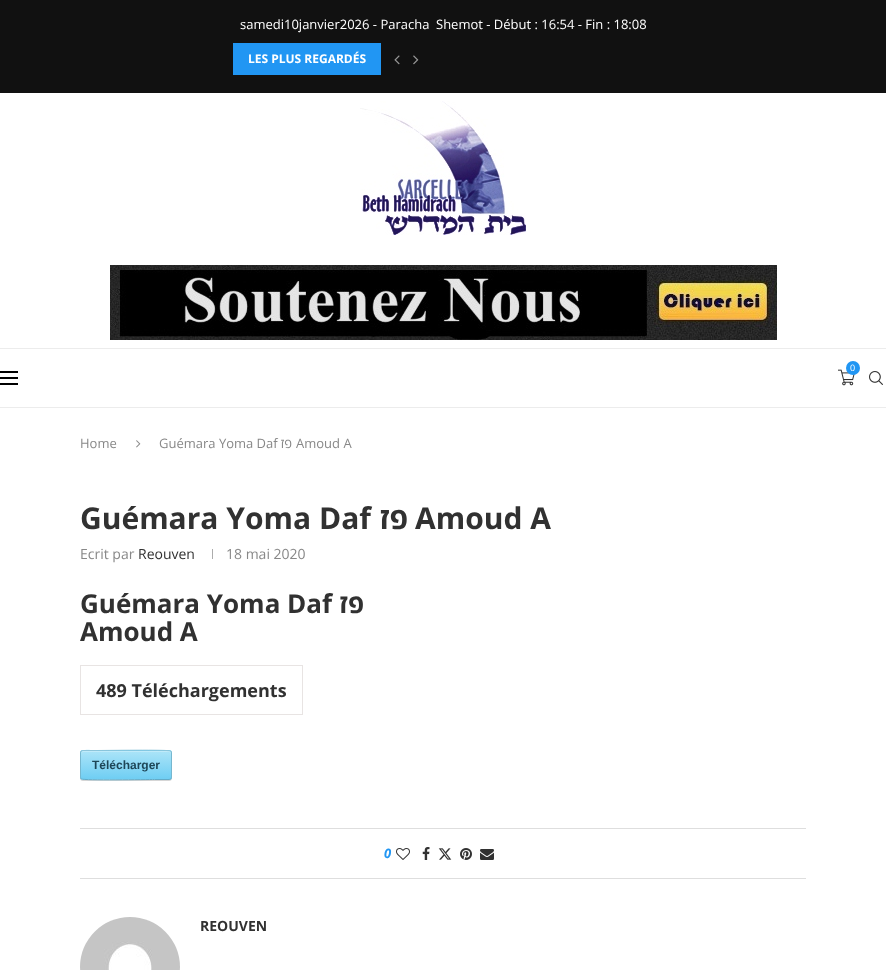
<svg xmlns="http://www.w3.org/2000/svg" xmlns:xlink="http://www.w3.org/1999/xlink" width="886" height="970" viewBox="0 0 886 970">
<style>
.cls-1{font:13px Open Sans;fill:#ffffff}
.cls-2{font:bold 12px Open Sans;fill:#ffffff}
.cls-3{font:9px Open Sans;fill:#ffffff}
.cls-4{font:13px Open Sans;fill:#888888}
.cls-5{font:13px Open Sans;direction:rtl;fill:#888888}
.cls-6{font:bold 30px Open Sans;fill:#313131}
.cls-7{font:bold 30px Open Sans;direction:rtl;fill:#313131}
.cls-8{font:14px Open Sans;fill:#888888}
.cls-9{font:14px Open Sans;fill:#313131}
.cls-10{font:bold 26px Open Sans;fill:#313131}
.cls-11{font:bold 26px Open Sans;direction:rtl;fill:#313131}
.cls-12{font:bold 18px Open Sans;fill:#313131}
.cls-13{font:bold 12px Liberation Sans;fill:#1e4657}
.cls-14{font:italic bold 13px Open Sans;fill:#2196f3}
.cls-15{font:bold 14px Open Sans;fill:#313131}
</style>
<defs>
<clipPath id="clip1"><rect x="80" y="750" width="92" height="30" rx="3"/></clipPath>
<linearGradient id="g1" gradientUnits="userSpaceOnUse" x1="81" y1="723" x2="81" y2="751"><stop offset="0" stop-color="#abe4f8"/><stop offset="1" stop-color="#6fcef3"/></linearGradient>
<linearGradient id="g2" gradientUnits="userSpaceOnUse" x1="81" y1="751" x2="81" y2="779"><stop offset="0" stop-color="#abe4f8"/><stop offset="1" stop-color="#6fcef3"/></linearGradient>
<linearGradient id="g3" gradientUnits="userSpaceOnUse" x1="81" y1="779" x2="81" y2="807"><stop offset="0" stop-color="#abe4f8"/><stop offset="1" stop-color="#6fcef3"/></linearGradient>
</defs>
<rect width="100%" height="100%" fill="#ffffff"/>
<rect fill="#111111" x="0" y="0" width="886" height="93"/>
<rect fill="#2196f3" x="233" y="43" width="148" height="32"/>
<image xlink:href="image0.png" x="394" y="55" width="6" height="10"/>
<image xlink:href="image1.png" x="413" y="55" width="6" height="10"/>
<image xlink:href="image2.png" x="360" y="101" width="166" height="134"/>
<image xlink:href="image3.png" x="110" y="265" width="667" height="75"/>
<rect fill="#ececec" x="0" y="348" width="886" height="1"/>
<rect fill="#ececec" x="0" y="407" width="886" height="1"/>
<image xlink:href="image4.png" x="838" y="369" width="17" height="17"/>
<circle fill="#2196f3" cx="853" cy="368" r="7"/>
<rect fill="#000000" x="0" y="371" width="18" height="2"/>
<rect fill="#000000" x="0" y="377" width="18" height="2"/>
<rect fill="#000000" x="0" y="383" width="18" height="2"/>
<image xlink:href="image5.png" x="869" y="371" width="14" height="14"/>
<image xlink:href="image6.png" x="136" y="440" width="5" height="8"/>
<rect fill="#acacac" x="212" y="549" width="1" height="10"/>
<rect fill="none" stroke="#e8e4e3" x="80.5" y="665.5" width="222" height="49"/>
<rect fill="#d6d6d6" filter="blur(0.5px)" x="80" y="751" width="92" height="30" rx="3"/>
<g clip-path="url(#clip1)">
<rect fill="url(#g1)" x="80" y="750" width="92" height="1"/>
<rect fill="url(#g2)" x="80" y="751" width="92" height="28"/>
<rect fill="url(#g3)" x="80" y="779" width="92" height="1"/>
</g>
<path fill="#c0ebfa" d="M83 752H169C170 752 171 753 171 754C171 753 171 751 169 751H97C95 751 81 747 81 754C81 753 82 752 83 752Z"/>
<path fill="none" stroke="#8dc5da" d="M81 751L83 750.5H97.5C105 750.5 168.5 749.5 170.5 751H171"/>
<path fill="none" stroke="#76b7cf" d="M171 751C171 751.5 171.5 752.5 171.5 753V777C171.5 777.5 171 778.5 171 779"/>
<path fill="none" stroke="#63abc7" d="M171 779L169 779.5H154.5C147 779.5 83.5 780.5 81.5 779H81"/>
<path fill="none" stroke="#76b7cf" d="M81 779C81 778.5 80.5 777.5 80.5 777V753C80.5 752.5 81 751.5 81 751"/>
<rect fill="#dedede" x="80" y="828" width="726" height="1"/>
<image xlink:href="image7.png" x="396" y="848" width="14" height="12"/>
<image xlink:href="image8.png" x="422" y="847" width="8" height="13"/>
<image xlink:href="image9.png" x="438" y="848" width="14" height="12"/>
<image xlink:href="image10.png" x="460" y="848" width="12" height="12"/>
<image xlink:href="image11.png" x="480" y="849" width="14" height="11"/>
<rect fill="#dedede" x="80" y="878" width="726" height="1"/>
<image xlink:href="image12.png" x="80" y="917" width="100" height="53"/>
<text class="cls-1" x="240" y="29">samedi10janvier2026 - Paracha</text>
<text class="cls-1" x="436" y="29">Shemot - Début : 16:54 - Fin : 18:08</text>
<text class="cls-2" x="248" y="63">LES PLUS REGARDÉS</text>
<text class="cls-3" x="850" y="371">0</text>
<text class="cls-4" x="80" y="448">Home</text>
<text class="cls-4" x="159" y="448">Guémara Yoma Daf</text>
<text class="cls-5" x="292" y="448">פז</text>
<text class="cls-4" x="296" y="448">Amoud A</text>
<text class="cls-6" x="80" y="529">Guémara Yoma Daf</text>
<text class="cls-7" x="408" y="529">פז</text>
<text class="cls-6" x="415" y="529">Amoud A</text>
<text class="cls-8" x="80" y="559">Ecrit par</text>
<text class="cls-9" x="138" y="559">Reouven</text>
<text class="cls-8" x="226" y="559">18 mai 2020</text>
<text class="cls-10" x="80" y="613">Guémara Yoma Daf</text>
<text class="cls-11" x="364" y="613">פז</text>
<text class="cls-10" x="80" y="641">Amoud A</text>
<text class="cls-12" x="96" y="697">489 Téléchargements</text>
<text class="cls-13" x="92" y="769">Télécharger</text>
<text class="cls-14" x="384" y="858">0</text>
<text class="cls-15" x="200" y="931">REOUVEN</text>
</svg>
